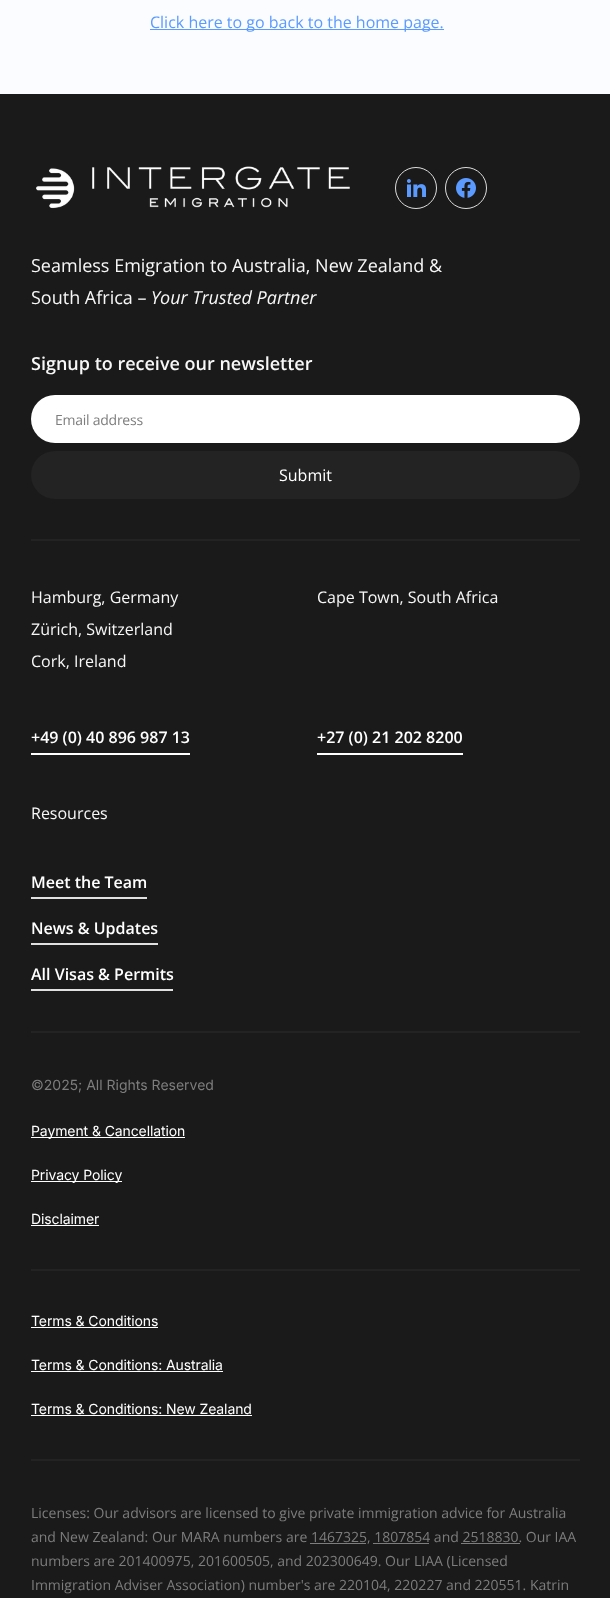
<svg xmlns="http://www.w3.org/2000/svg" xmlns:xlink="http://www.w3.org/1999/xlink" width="610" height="1598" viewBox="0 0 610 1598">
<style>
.cls-1{font:16px Open Sans;fill:#5b9aff}
.cls-2{font:18px Open Sans;fill:#f7f7f7}
.cls-3{font:italic 18px Open Sans;fill:#f7f7f7}
.cls-4{font:600 18px Open Sans;fill:#f7f7f7}
.cls-5{font:14px Open Sans;letter-spacing:-0.25px;fill:#7d7d7d}
.cls-6{font:16px Open Sans;fill:#ffffff}
.cls-7{font:16px Open Sans;fill:#f7f7f7}
.cls-8{font:600 16px Open Sans;fill:#ffffff}
.cls-9{font:14px Inter;fill:#7d7d7d}
.cls-10{font:14px Inter;letter-spacing:-0.1px;fill:#ffffff}
.cls-11{font:14px Open Sans;fill:#7d7d7d}
</style>
<rect width="100%" height="100%" fill="#fafcff"/>
<rect fill="#5b9aff" x="150" y="29" width="294" height="1"/>
<rect fill="#1a1a1a" x="0" y="94" width="610" height="1504"/>
<image xlink:href="image0.png" x="36" y="166" width="314" height="43"/>
<circle fill="none" stroke="#dddddd" cx="416" cy="188" r="20.5"/>
<image xlink:href="image1.png" x="407" y="179" width="19" height="18"/>
<circle fill="none" stroke="#dddddd" cx="466" cy="188" r="20.5"/>
<image xlink:href="image2.png" x="456" y="178" width="20" height="20"/>
<rect fill="#ffffff" x="31" y="395" width="549" height="48" rx="24"/>
<rect fill="#232323" x="31" y="451" width="549" height="48" rx="24"/>
<rect fill="#232323" x="31" y="539" width="549" height="2"/>
<rect fill="#ffffff" x="31" y="753" width="159" height="2"/>
<rect fill="#ffffff" x="317" y="753" width="146" height="2"/>
<rect fill="#e0e0e0" x="31" y="897" width="116" height="2"/>
<rect fill="#e0e0e0" x="31" y="943" width="127" height="2"/>
<rect fill="#e0e0e0" x="31" y="989" width="142" height="2"/>
<rect fill="#232323" x="31" y="1031" width="549" height="2"/>
<rect fill="#ffffff" x="31" y="1137" width="154" height="1"/>
<rect fill="#ffffff" x="31" y="1181" width="91" height="1"/>
<rect fill="#ffffff" x="31" y="1225" width="68" height="1"/>
<rect fill="#232323" x="31" y="1269" width="549" height="2"/>
<rect fill="#ffffff" x="31" y="1327" width="127" height="1"/>
<rect fill="#ffffff" x="31" y="1371" width="192" height="1"/>
<rect fill="#ffffff" x="31" y="1415" width="221" height="1"/>
<rect fill="#232323" x="31" y="1459" width="549" height="2"/>
<rect fill="#7d7d7d" x="310" y="1543" width="56" height="1"/>
<rect fill="#7d7d7d" x="373" y="1543" width="56" height="1"/>
<rect fill="#7d7d7d" x="461" y="1543" width="59" height="1"/>
<text class="cls-1" x="150" y="28">Click here to go back to the home page.</text>
<text class="cls-2"><tspan x="31" y="272">Seamless Emigration to Australia, New Zealand &amp;</tspan><tspan x="31" y="304">South Africa –</tspan></text>
<text class="cls-3" x="151" y="304">Your Trusted Partner</text>
<text class="cls-4" x="31" y="370">Signup to receive our newsletter</text>
<text class="cls-5" x="55" y="425">Email address</text>
<text class="cls-6" x="279" y="481">Submit</text>
<text class="cls-7" x="31" y="603">Hamburg, Germany</text>
<text class="cls-7" x="31" y="635">Zürich, Switzerland</text>
<text class="cls-7" x="31" y="667">Cork, Ireland</text>
<text class="cls-8" x="31" y="743">+49 (0) 40 896 987 13</text>
<text class="cls-7" x="317" y="603">Cape Town, South Africa</text>
<text class="cls-8" x="317" y="743">+27 (0) 21 202 8200</text>
<text class="cls-7" x="31" y="819">Resources</text>
<text class="cls-8" x="31" y="888">Meet the Team</text>
<text class="cls-8" x="31" y="934">News &amp; Updates</text>
<text class="cls-8" x="31" y="980">All Visas &amp; Permits</text>
<text class="cls-9" x="31" y="1090">©2025; All Rights Reserved</text>
<text class="cls-10" x="31" y="1136">Payment &amp; Cancellation</text>
<text class="cls-10" x="31" y="1180">Privacy Policy</text>
<text class="cls-10" x="31" y="1224">Disclaimer</text>
<text class="cls-10" x="31" y="1326">Terms &amp; Conditions</text>
<text class="cls-10" x="31" y="1370">Terms &amp; Conditions: Australia</text>
<text class="cls-10" x="31" y="1414">Terms &amp; Conditions: New Zealand</text>
<text class="cls-11"><tspan x="31" y="1518">Licenses: Our advisors are licensed to give private immigration advice for Australia</tspan><tspan x="31" y="1542">and New Zealand: Our MARA numbers are 1467325, 1807854 and 2518830. Our IAA</tspan><tspan x="31" y="1566">numbers are 201400975, 201600505, and 202300649. Our LIAA (Licensed</tspan><tspan x="31" y="1590">Immigration Adviser Association) number's are 220104, 220227 and 220551. Katrin</tspan></text>
</svg>
